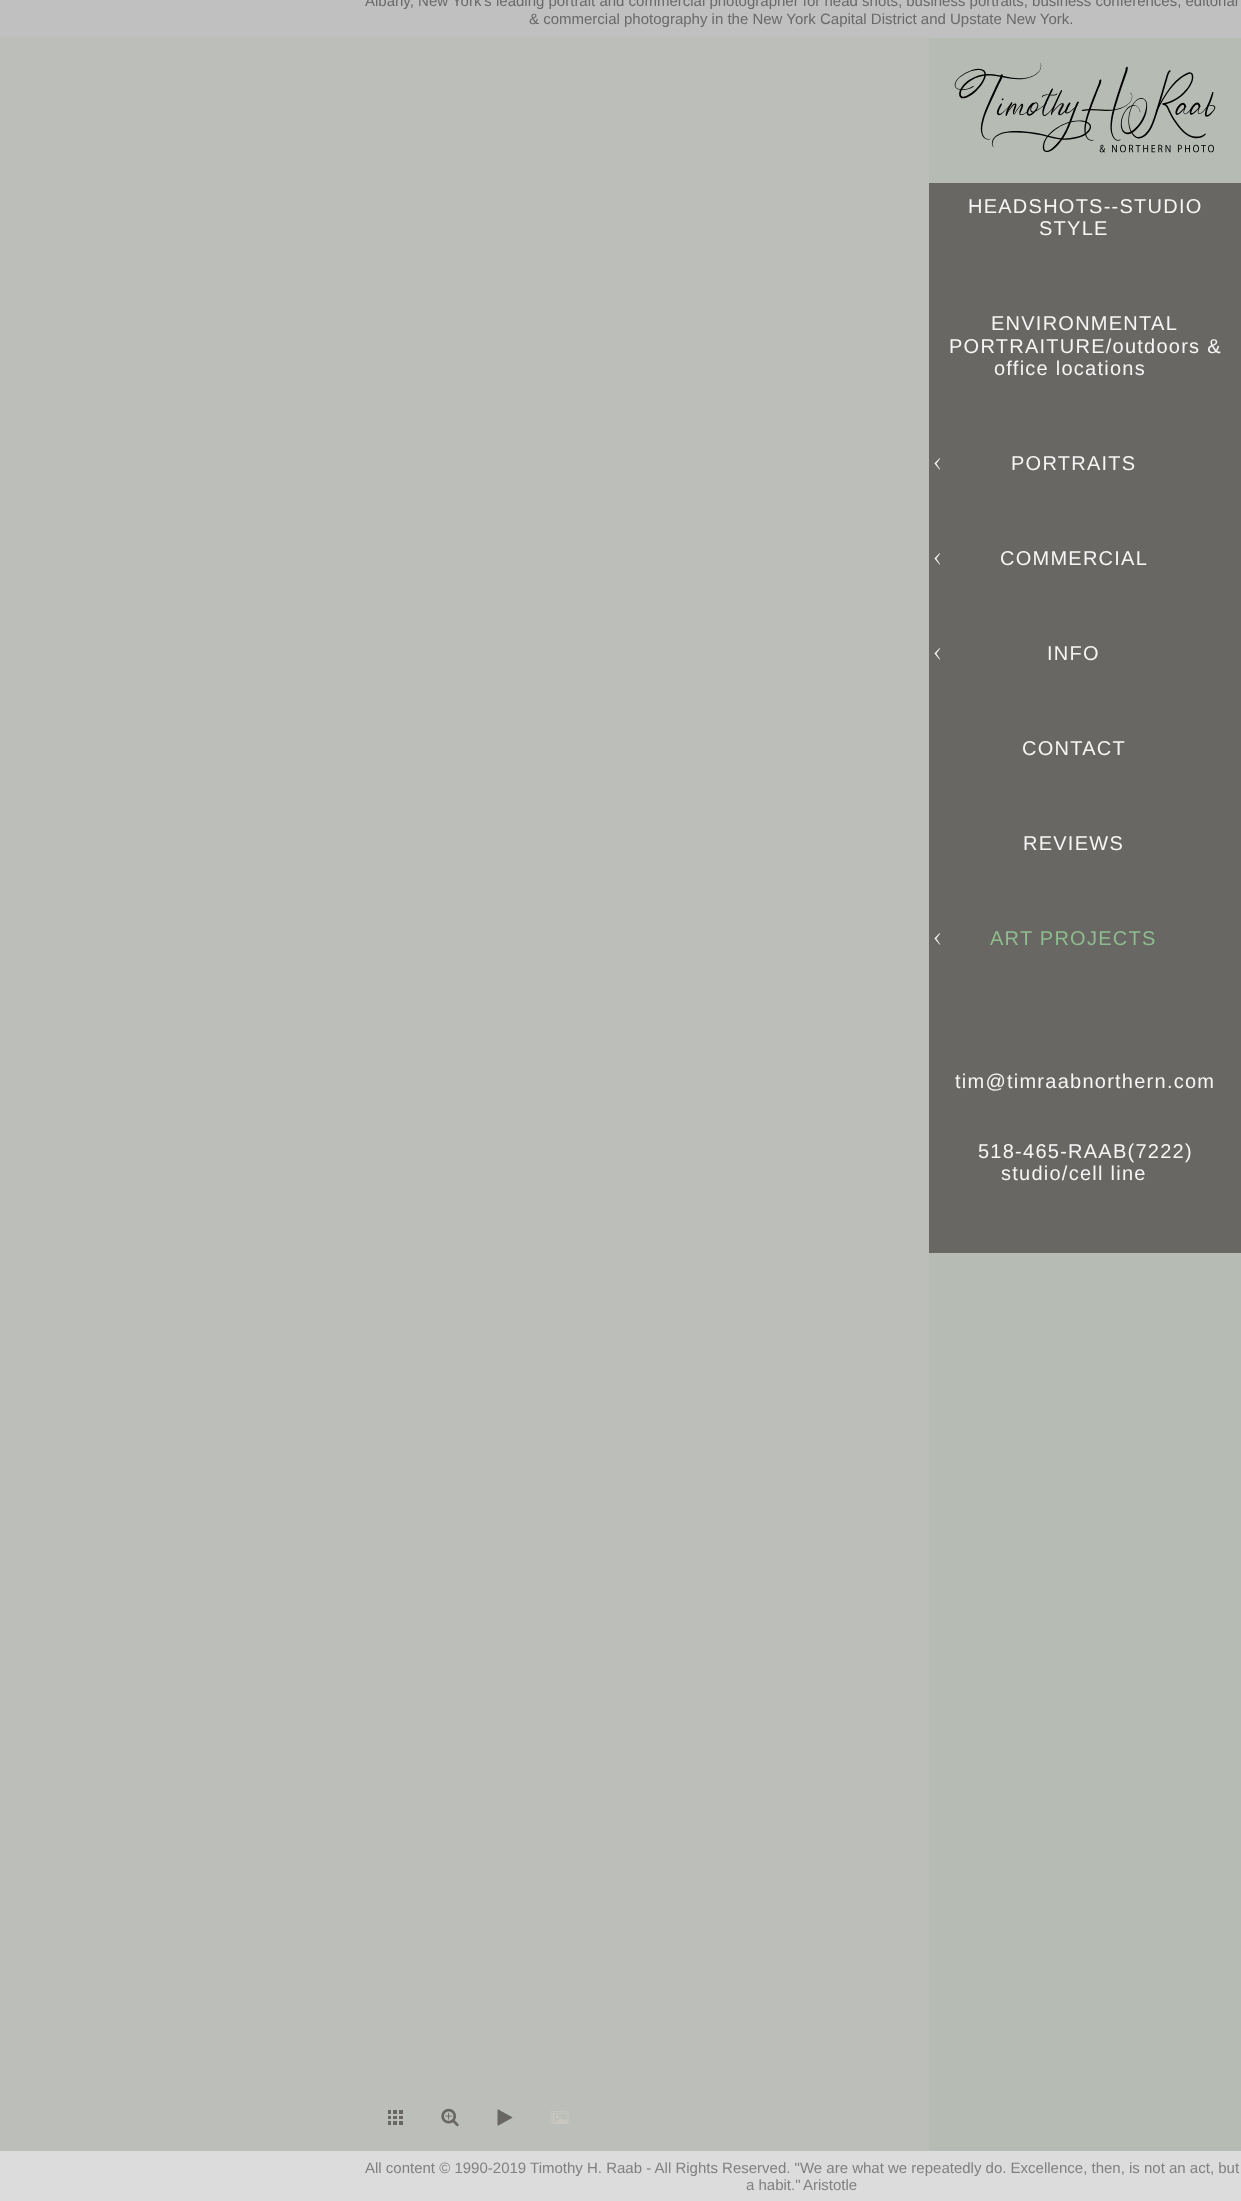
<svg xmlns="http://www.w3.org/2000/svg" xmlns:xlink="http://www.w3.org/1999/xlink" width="1241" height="2201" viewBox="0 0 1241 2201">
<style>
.cls-1{font:15px Liberation Sans;fill:#696969}
.cls-2{font:20px Liberation Sans;letter-spacing:1.25px;fill:#f5f5f5}
.cls-3{font:20px Liberation Sans;letter-spacing:1.25px;fill:#8fbc8f}
.cls-4{font:15px Liberation Sans;fill:#808080}
</style>
<rect width="100%" height="100%" fill="#bbbeb9"/>
<rect fill="#c0c0c0" x="0" y="0" width="1241" height="38"/>
<rect fill="#b6bbb4" x="929" y="38" width="312" height="2113"/>
<image xlink:href="image0.png" x="954" y="63" width="262" height="90"/>
<rect fill="#686763" x="929" y="183" width="312" height="1070"/>
<image xlink:href="image1.png" x="934" y="458" width="7" height="12"/>
<image xlink:href="image1.png" x="934" y="553" width="7" height="12"/>
<image xlink:href="image1.png" x="934" y="648" width="7" height="12"/>
<image xlink:href="image1.png" x="934" y="933" width="7" height="12"/>
<image xlink:href="image2.png" x="388" y="2110" width="15" height="15"/>
<image xlink:href="image3.png" x="441" y="2108" width="18" height="19"/>
<image xlink:href="image4.png" x="497" y="2109" width="16" height="17"/>
<image xlink:href="image5.png" x="550" y="2111" width="19" height="13"/>
<rect fill="#dcdcdc" x="0" y="2151" width="1241" height="50"/>
<text class="cls-1" x="365" y="6">Albany, New York's leading portrait and commercial photographer for head shots, business portraits, business conferences, editorial</text>
<text class="cls-1" x="529" y="24">&amp; commercial photography in the New York Capital District and Upstate New York.</text>
<text class="cls-2" x="968" y="213">HEADSHOTS--STUDIO</text>
<text class="cls-2" x="1039" y="235">STYLE</text>
<text class="cls-2" x="991" y="330">ENVIRONMENTAL</text>
<text class="cls-2" x="949" y="353">PORTRAITURE/outdoors &amp;</text>
<text class="cls-2" x="994" y="375">office locations</text>
<text class="cls-2" x="1011" y="470">PORTRAITS</text>
<text class="cls-2" x="1000" y="565">COMMERCIAL</text>
<text class="cls-2" x="1047" y="660">INFO</text>
<text class="cls-2" x="1022" y="755">CONTACT</text>
<text class="cls-2" x="1023" y="850">REVIEWS</text>
<text class="cls-3" x="990" y="945">ART PROJECTS</text>
<text class="cls-2" x="955" y="1088">tim@timraabnorthern.com</text>
<text class="cls-2" x="978" y="1158">518-465-RAAB(7222)</text>
<text class="cls-2" x="1001" y="1180">studio/cell line</text>
<text class="cls-4" x="365" y="2173">All content © 1990-2019 Timothy H. Raab - All Rights Reserved. "We are what we repeatedly do. Excellence, then, is not an act, but</text>
<text class="cls-4" x="746" y="2190">a habit."</text>
<text class="cls-4" x="803" y="2190">Aristotle</text>
</svg>
